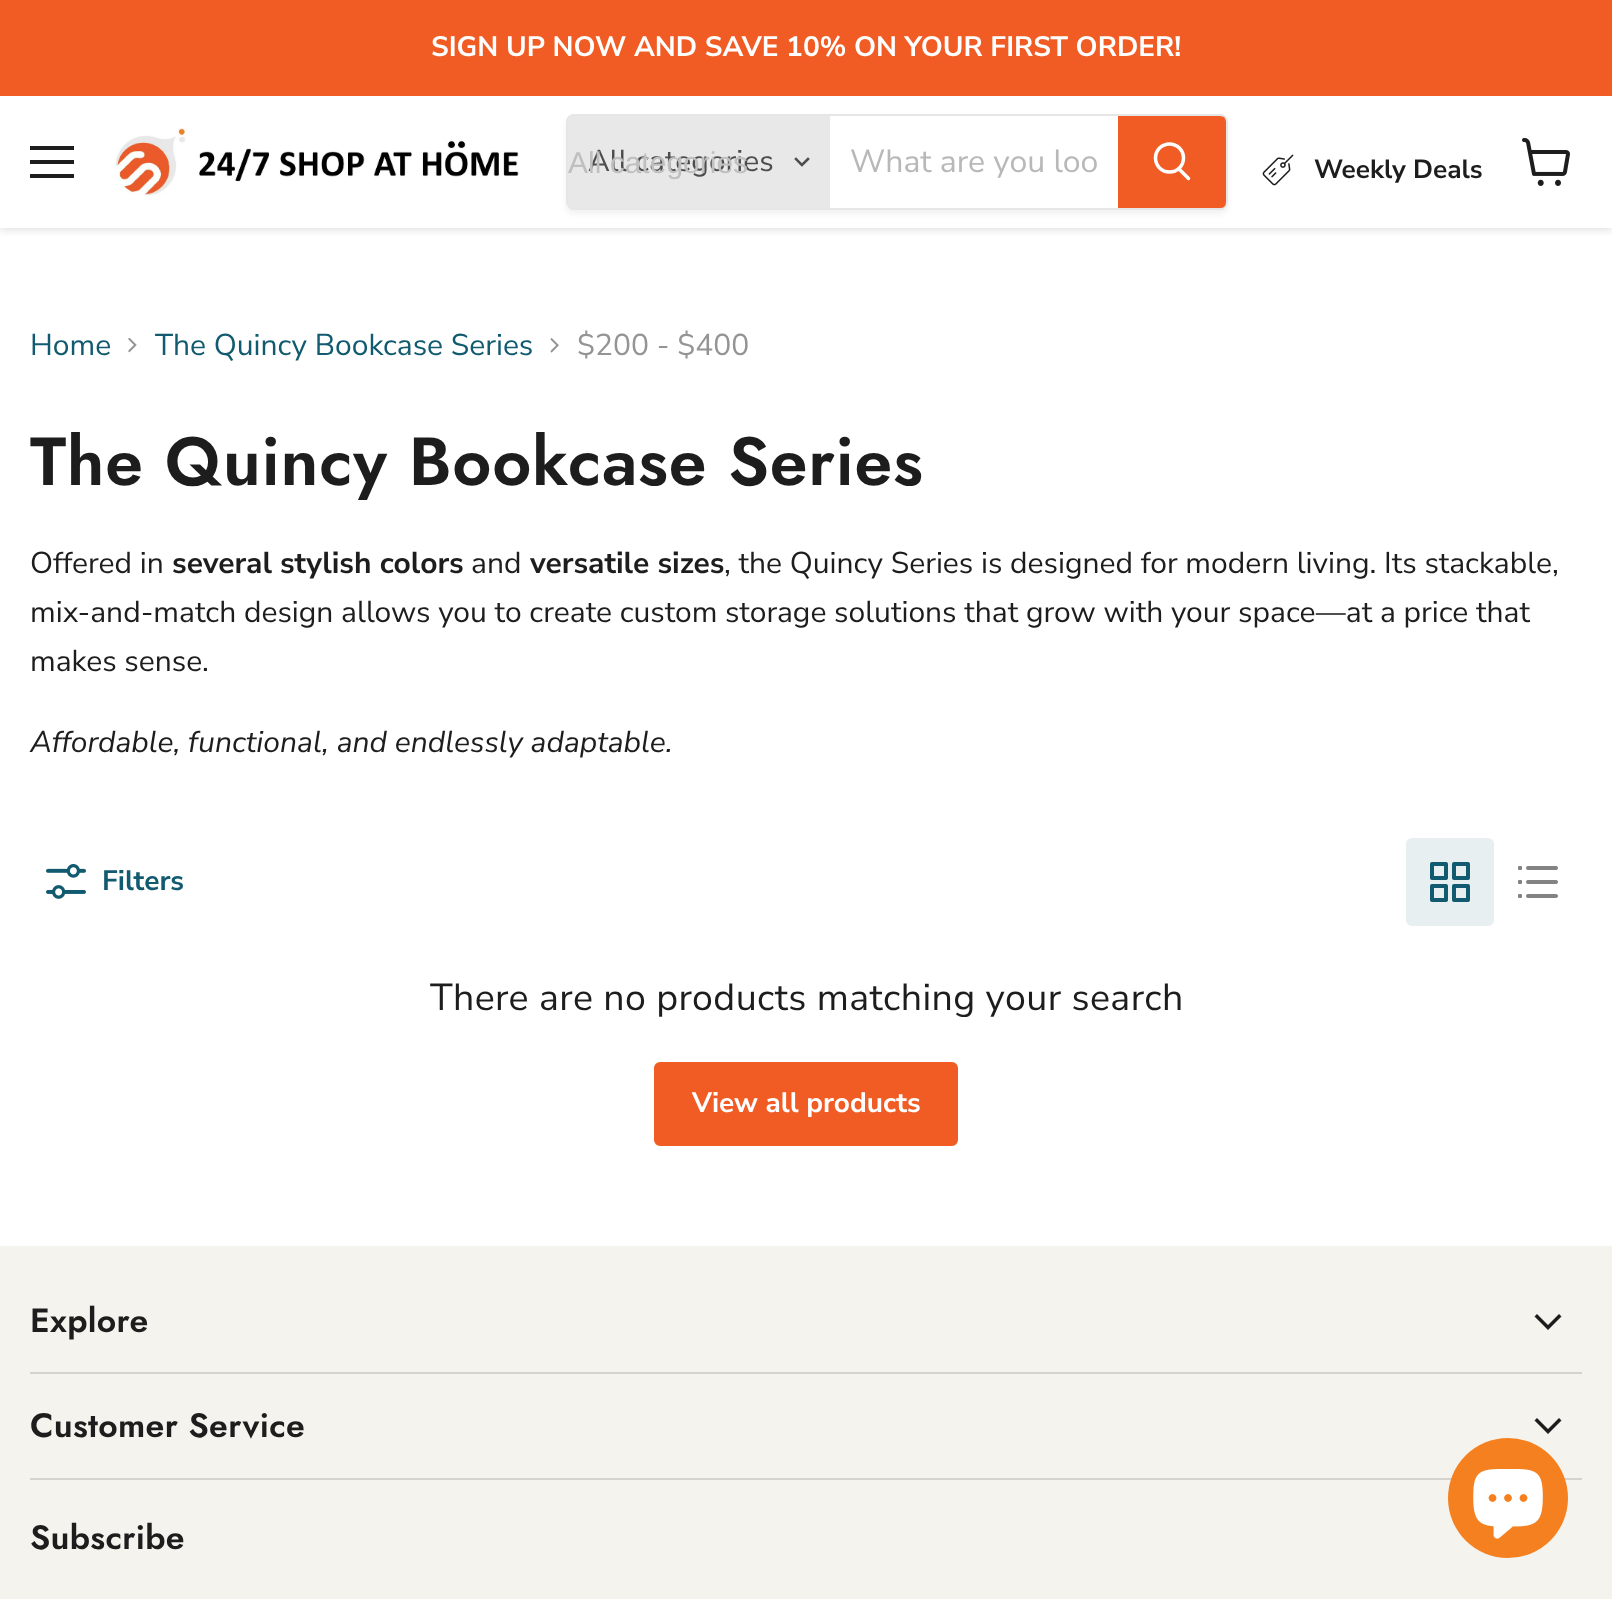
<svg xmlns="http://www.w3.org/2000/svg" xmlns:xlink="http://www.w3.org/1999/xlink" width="1612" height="1599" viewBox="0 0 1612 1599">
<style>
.cls-1{font:bold 28.1px Nunito Sans;fill:#ffffff}
.cls-2{font:30px Nunito Sans;fill:#4d4d4d}
.cls-3{font:30px Liberation Sans;fill:#bfbfbf}
.cls-4{font:32px Nunito Sans;fill:#b8b8b8}
.cls-5{font:bold 26.25px Nunito Sans;fill:#1d1d1d}
.cls-6{font:30px Nunito Sans;fill:#115a70}
.cls-7{font:30px Nunito Sans;fill:#949494}
.cls-8{font:600 68px Jost;letter-spacing:0.7px;fill:#1d1d1d}
.cls-9{font:30px Nunito Sans;fill:#1d1d1d}
.cls-10{font:bold 30px Nunito Sans;fill:#1d1d1d}
.cls-11{font:italic 30px Nunito Sans;fill:#1d1d1d}
.cls-12{font:bold 28.1px Nunito Sans;fill:#115a70}
.cls-13{font:37.5px Nunito Sans;letter-spacing:0.4px;fill:#1d1d1d}
.cls-14{font:bold 28px Nunito Sans;fill:#ffffff}
.cls-15{font:600 33.75px Jost;letter-spacing:0.3px;fill:#1d1d1d}
</style>
<defs>
<clipPath id="clip1"><rect x="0" y="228" width="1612" height="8"/></clipPath>
<clipPath id="clip2"><path d="M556 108H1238V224H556ZM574 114H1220C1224.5 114 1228 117.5 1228 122V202C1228 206.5 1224.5 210 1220 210H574C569.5 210 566 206.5 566 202V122C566 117.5 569.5 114 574 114Z" clip-rule="evenodd"/></clipPath>
</defs>
<rect width="100%" height="100%" fill="#ffffff"/>
<g clip-path="url(#clip1)">
<rect fill="#808080" fill-opacity="0.25" filter="blur(4px)" x="0" y="98" width="1612" height="132"/>
</g>
<rect fill="#f15c24" x="0" y="0" width="1612" height="96"/>
<rect fill="#1d1d1d" x="30" y="146" width="44" height="4"/>
<rect fill="#1d1d1d" x="30" y="160" width="44" height="4"/>
<rect fill="#1d1d1d" x="30" y="174" width="44" height="4"/>
<image xlink:href="image0.png" x="115" y="128" width="404" height="68"/>
<g clip-path="url(#clip2)">
<rect fill="#808080" fill-opacity="0.11" filter="blur(3px)" x="566" y="118" width="662" height="96" rx="8"/>
</g>
<rect fill="none" stroke="#808080" stroke-opacity="0.2" stroke-width="2" x="567" y="115" width="660" height="94" rx="7"/>
<path fill="#e8e8e8" d="M574 116H830V208H574C570.5 208 568 205.5 568 202V122C568 118.5 570.5 116 574 116Z"/>
<path fill="none" stroke="#4d4d4d" stroke-width="2.5" stroke-linecap="square" d="M802 165L808 159M802 165L796 159"/>
<path fill="#f15c24" stroke="#f15c24" stroke-width="2" d="M1119 117H1220C1223 117 1225 119 1225 122V202C1225 205 1223 207 1220 207H1119Z"/>
<path fill="none" stroke="#ffffff" stroke-width="3.5" stroke-linecap="round" d="M1188.5 178.5L1179 169"/>
<circle fill="none" stroke="#ffffff" stroke-width="3.5" cx="1169.5" cy="158" r="14"/>
<image xlink:href="image1.png" x="1262" y="154" width="32" height="32"/>
<image xlink:href="image2.png" x="1522" y="138" width="48" height="48"/>
<image xlink:href="image3.png" x="128" y="337" width="9" height="16"/>
<image xlink:href="image4.png" x="550" y="338" width="9" height="15"/>
<image xlink:href="image5.png" x="46" y="864" width="40" height="35"/>
<rect fill="#e7eff1" x="1406" y="838" width="88" height="88" rx="6"/>
<image xlink:href="image6.png" x="1430" y="862" width="40" height="40"/>
<image xlink:href="image7.png" x="1518" y="866" width="40" height="32"/>
<rect fill="#f15c24" stroke="#f15c24" stroke-width="2" x="655" y="1063" width="302" height="82" rx="5"/>
<rect fill="#f5f3ed" x="0" y="1246" width="1612" height="353"/>
<rect fill="#d5d3ce" x="30" y="1372" width="1552" height="2"/>
<path fill="none" stroke="#1d1d1d" stroke-width="3.5" stroke-linecap="square" d="M1548 1327.5L1559 1316.5M1548 1327.5L1537 1316.5"/>
<rect fill="#d5d3ce" x="30" y="1478" width="1552" height="2"/>
<path fill="none" stroke="#1d1d1d" stroke-width="3.5" stroke-linecap="square" d="M1548 1431.5L1559 1420.5M1548 1431.5L1537 1420.5"/>
<circle fill="#f58020" cx="1508" cy="1498" r="60"/>
<image xlink:href="image8.png" x="1473" y="1469" width="70" height="70"/>
<text class="cls-1" x="431" y="56">SIGN UP NOW AND SAVE 10% ON YOUR FIRST ORDER!</text>
<text class="cls-2" x="588" y="171">All categories</text>
<text class="cls-3" x="568" y="173">All categories</text>
<text class="cls-4" x="850" y="172">What are you loo</text>
<text class="cls-5" x="1314" y="178">Weekly Deals</text>
<text class="cls-6" x="30" y="355">Home</text>
<text class="cls-6" x="155" y="355">The Quincy Bookcase Series</text>
<text class="cls-7" x="577" y="355">$200 - $400</text>
<text class="cls-8" x="30" y="485">The Quincy Bookcase Series</text>
<text class="cls-9" x="30" y="573">Offered in</text>
<text class="cls-10" x="172" y="573">several stylish colors</text>
<text class="cls-9" x="471" y="573">and</text>
<text class="cls-10" x="530" y="573">versatile sizes</text>
<text class="cls-9" x="724" y="573">, the Quincy Series is designed for modern living. Its stackable,</text>
<text class="cls-9"><tspan x="30" y="622">mix-and-match design allows you to create custom storage solutions that grow with your space—at a price that</tspan><tspan x="30" y="671">makes sense.</tspan></text>
<text class="cls-11" x="30" y="752">Affordable, functional, and endlessly adaptable.</text>
<text class="cls-12" x="102" y="890">Filters</text>
<text class="cls-13" x="430" y="1010">There are no products matching your search</text>
<text class="cls-14" x="692" y="1112">View all products</text>
<text class="cls-15" x="30" y="1332">Explore</text>
<text class="cls-15" x="30" y="1437">Customer Service</text>
<text class="cls-15" x="30" y="1549">Subscribe</text>
</svg>
